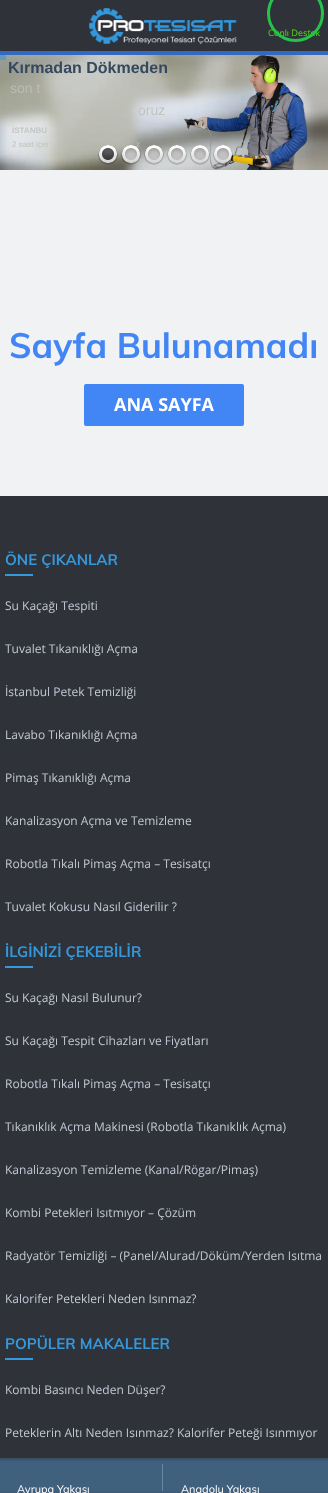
<svg xmlns="http://www.w3.org/2000/svg" xmlns:xlink="http://www.w3.org/1999/xlink" width="328" height="1493" viewBox="0 0 328 1493">
<style>
.cls-1{font:9px Muli;fill:#52e00e}
.cls-2{font:bold 16px Liberation Sans;fill:#34495e}
.cls-3{font:14px Liberation Sans;fill:#bbbcb4}
.cls-4{font:14px Liberation Sans;fill:#c1c3be}
.cls-5{font:bold 8px Liberation Sans;fill:#c3c6c4}
.cls-6{font:8px Liberation Sans;fill:#c1c3be}
.cls-7{font:bold 35px Muli;fill:#4285f4}
.cls-8{font:bold 18px Open Sans;fill:#ffffff}
.cls-9{font:bold 15px Muli;fill:#3498db}
.cls-10{font:12px Open Sans;fill:#c2c8d4}
.cls-11{font:11px Muli;fill:#ffffff}
</style>
<rect width="100%" height="100%" fill="#f1f2f3"/>
<rect fill="#2f3239" x="0" y="0" width="328" height="51"/>
<rect fill="#336abf" x="0" y="51" width="328" height="4"/>
<image xlink:href="image0.png" x="89" y="8" width="148" height="36"/>
<image xlink:href="image1.png" x="0" y="55" width="328" height="115"/>
<rect fill="#3498db" fill-opacity="0.6" x="0" y="55" width="6" height="5"/>
<image xlink:href="image2.png" x="183" y="55" width="125" height="115"/>
<image xlink:href="image3.png" x="98" y="145" width="20" height="20"/>
<image xlink:href="image5.png" x="144" y="145" width="20" height="20"/>
<image xlink:href="image6.png" x="167" y="145" width="20" height="20"/>
<image xlink:href="image7.png" x="190" y="145" width="20" height="20"/>
<image xlink:href="image8.png" x="213" y="145" width="20" height="20"/>
<rect fill="#4285f4" x="84" y="384" width="160" height="42" rx="2"/>
<rect fill="#2f3239" x="0" y="496" width="328" height="997"/>
<rect fill="#3498db" x="5" y="574" width="28" height="2"/>
<rect fill="#3498db" x="5" y="966" width="28" height="2"/>
<rect fill="#3498db" x="5" y="1358" width="28" height="2"/>
<image xlink:href="image9.png" x="0" y="1458" width="328" height="35"/>
<rect fill="#6287a7" x="162" y="1464" width="1" height="27"/>
<text class="cls-1" x="268" y="36">Canlı Destek</text>
<circle fill="none" stroke="#27c24c" stroke-width="3" cx="295.5" cy="13.5" r="27"/>
<text class="cls-2" x="8" y="73">Kırmadan Dökmeden</text>
<text class="cls-3" x="10" y="93">son t</text>
<text class="cls-4" x="138" y="115">oruz</text>
<text class="cls-5" x="12" y="133">İSTANBU</text>
<text class="cls-6" x="12" y="147">2 saat içer</text>
<text class="cls-6" x="136" y="147">z</text>
<image xlink:href="image4.png" x="121" y="145" width="20" height="20"/>
<text class="cls-7" x="9" y="358">Sayfa Bulunamadı</text>
<text class="cls-8" x="114" y="411">ANA SAYFA</text>
<text class="cls-9" x="5" y="565">ÖNE ÇIKANLAR</text>
<text class="cls-10" x="5" y="610">Su Kaçağı Tespiti</text>
<text class="cls-10" x="5" y="653">Tuvalet Tıkanıklığı Açma</text>
<text class="cls-10" x="5" y="696">İstanbul Petek Temizliği</text>
<text class="cls-10" x="5" y="739">Lavabo Tıkanıklığı Açma</text>
<text class="cls-10" x="5" y="782">Pimaş Tıkanıklığı Açma</text>
<text class="cls-10" x="5" y="825">Kanalizasyon Açma ve Temizleme</text>
<text class="cls-10" x="5" y="868">Robotla Tıkalı Pimaş Açma – Tesisatçı</text>
<text class="cls-10" x="5" y="911">Tuvalet Kokusu Nasıl Giderilir ?</text>
<text class="cls-9" x="5" y="957">İLGİNİZİ ÇEKEBİLİR</text>
<text class="cls-10" x="5" y="1002">Su Kaçağı Nasıl Bulunur?</text>
<text class="cls-10" x="5" y="1045">Su Kaçağı Tespit Cihazları ve Fiyatları</text>
<text class="cls-10" x="5" y="1088">Robotla Tıkalı Pimaş Açma – Tesisatçı</text>
<text class="cls-10" x="5" y="1131">Tıkanıklık Açma Makinesi (Robotla Tıkanıklık Açma)</text>
<text class="cls-10" x="5" y="1174">Kanalizasyon Temizleme (Kanal/Rögar/Pimaş)</text>
<text class="cls-10" x="5" y="1217">Kombi Petekleri Isıtmıyor – Çözüm</text>
<text class="cls-10" x="5" y="1260">Radyatör Temizliği – (Panel/Alurad/Döküm/Yerden Isıtma</text>
<text class="cls-10" x="5" y="1303">Kalorifer Petekleri Neden Isınmaz?</text>
<text class="cls-9" x="5" y="1349">POPÜLER MAKALELER</text>
<text class="cls-10" x="5" y="1394">Kombi Basıncı Neden Düşer?</text>
<text class="cls-10" x="5" y="1437">Peteklerin Altı Neden Isınmaz? Kalorifer Peteği Isınmıyor</text>
<text class="cls-11" x="17" y="1493">Avrupa Yakası</text>
<text class="cls-11" x="181" y="1493">Anadolu Yakası</text>
</svg>
